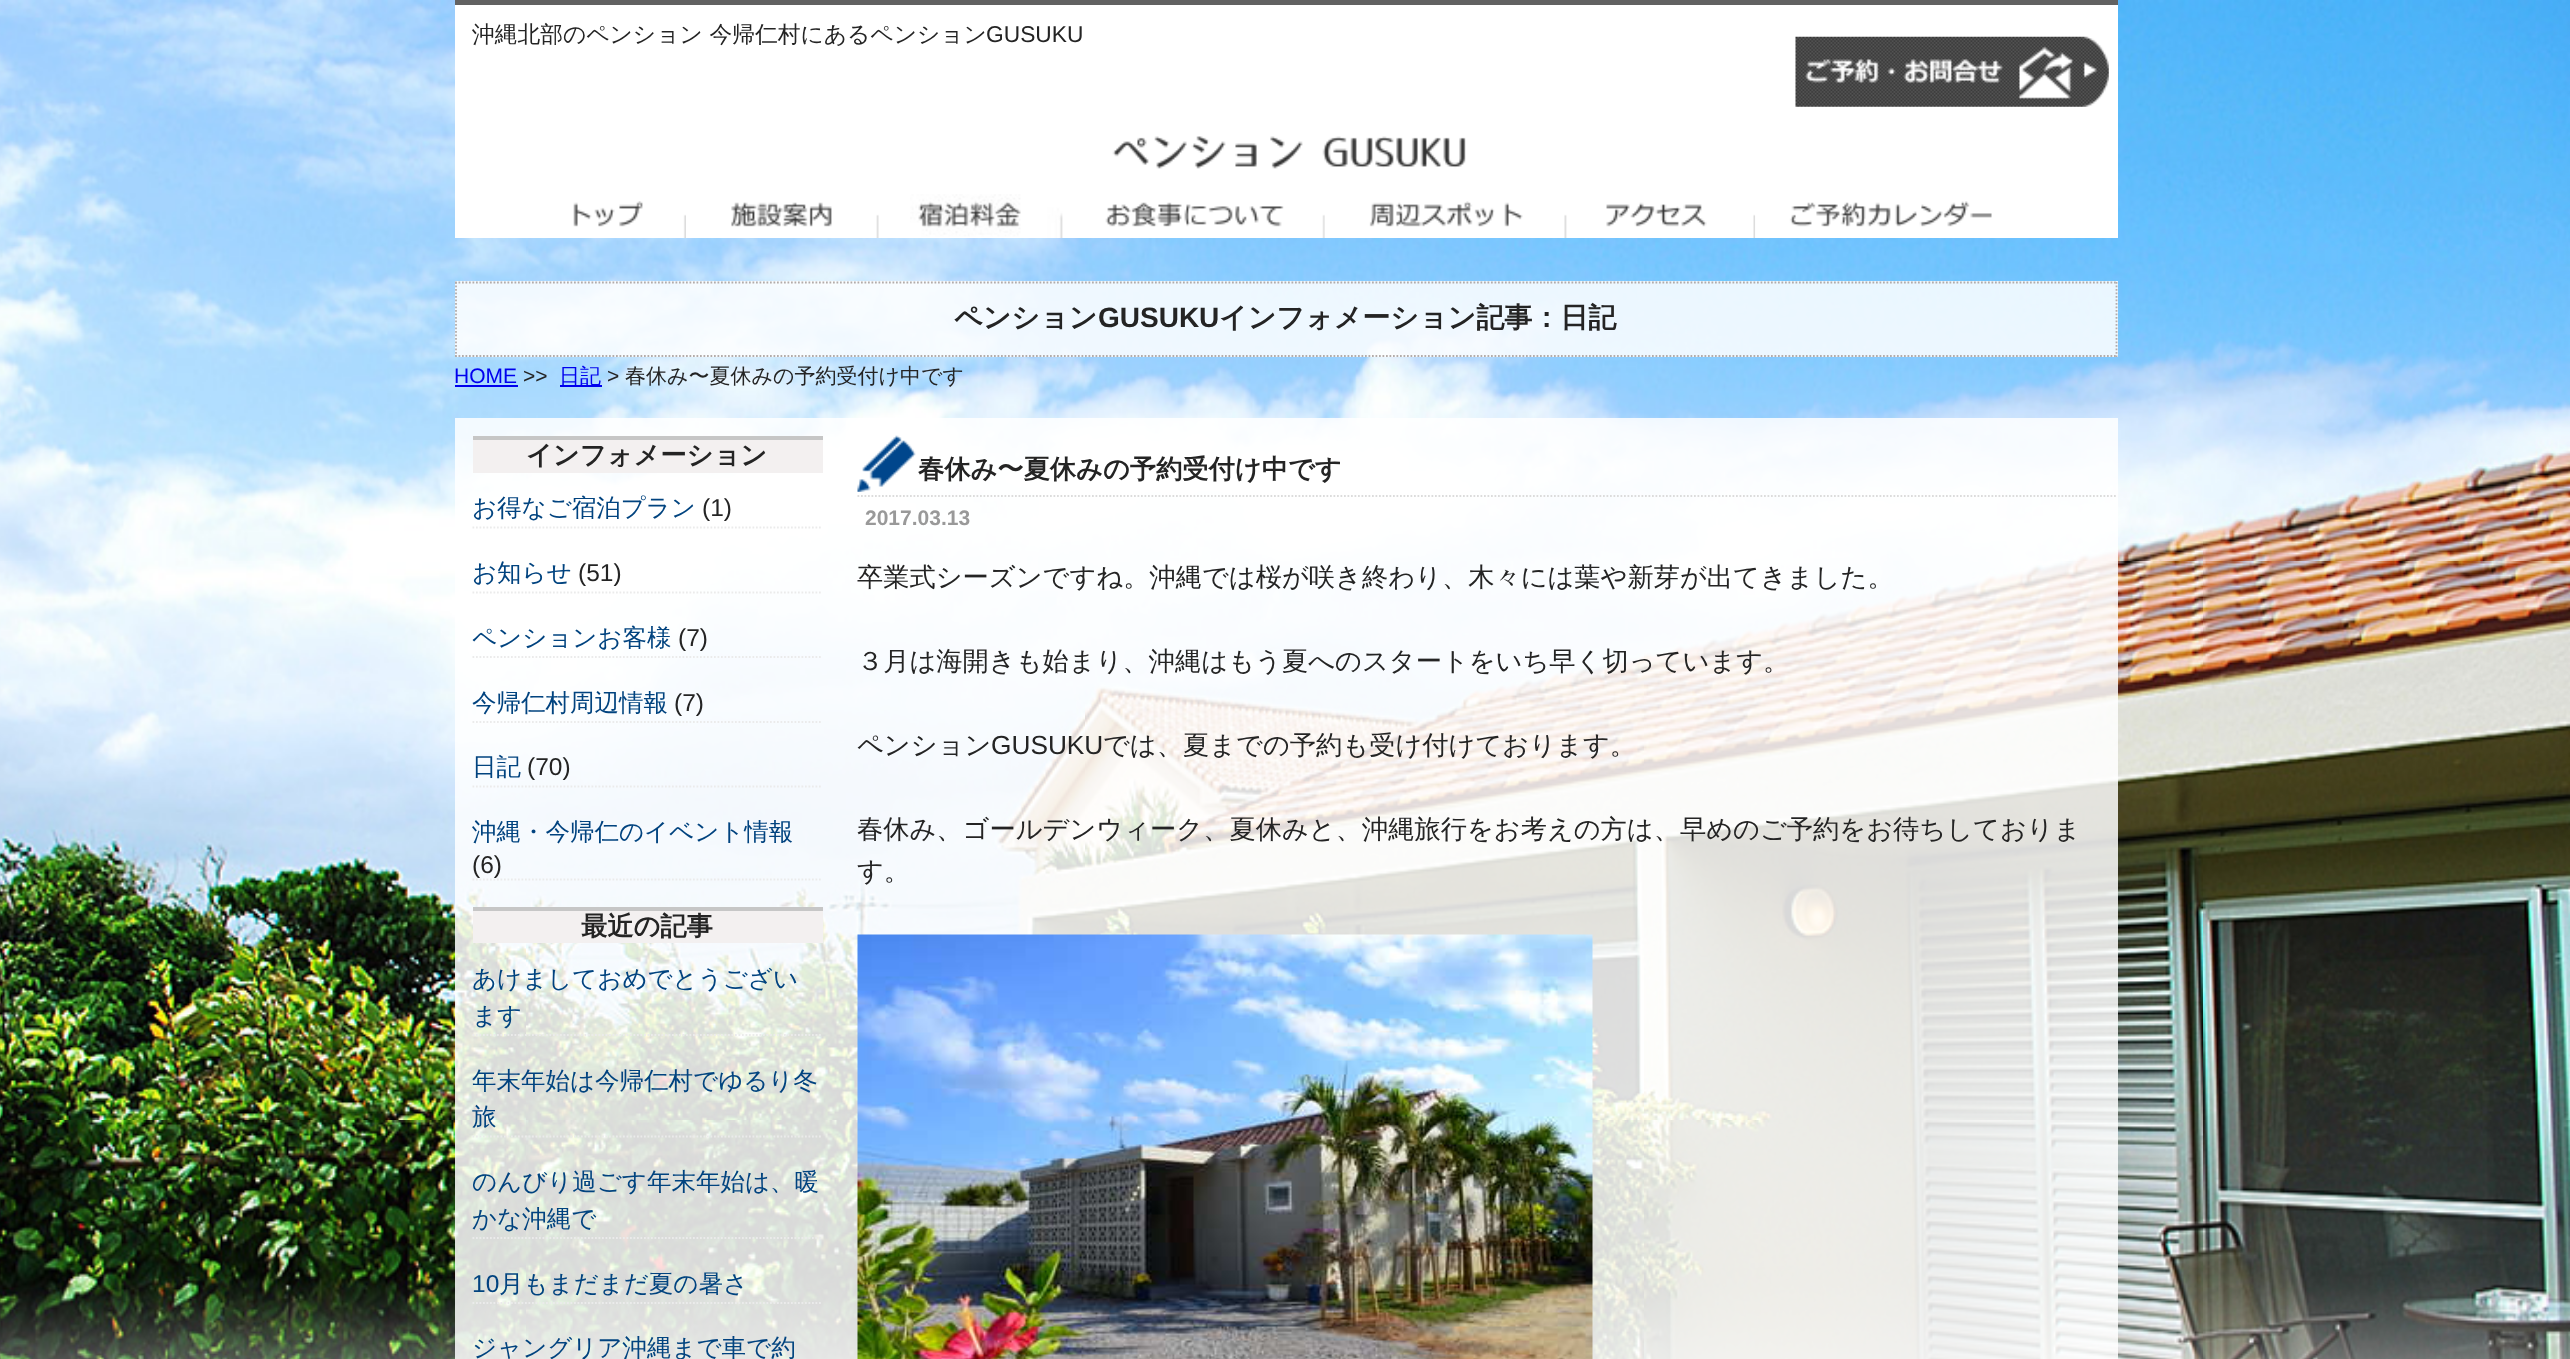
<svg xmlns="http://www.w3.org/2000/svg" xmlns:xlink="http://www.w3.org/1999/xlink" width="2570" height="1359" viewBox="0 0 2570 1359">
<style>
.cls-1{font:500 22.75px WenQuanYi Zen Hei;fill:#242424}
.cls-2{font:22.75px Liberation Sans;fill:#242424}
.cls-3{font:bold 28px WenQuanYi Zen Hei;fill:#242424}
.cls-4{font:bold 28px Liberation Sans;fill:#242424}
.cls-5{font:21px Liberation Sans;fill:#0000ee}
.cls-6{font:21px Liberation Sans;fill:#242424}
.cls-7{font:500 21px WenQuanYi Zen Hei;fill:#0000ee}
.cls-8{font:500 21px WenQuanYi Zen Hei;fill:#242424}
.cls-9{font:bold 26.25px WenQuanYi Zen Hei;fill:#242424}
.cls-10{font:500 24.5px WenQuanYi Zen Hei;fill:#01437f}
.cls-11{font:24.5px Liberation Sans;fill:#242424}
.cls-12{font:24.5px Liberation Sans;fill:#01437f}
.cls-13{font:bold 21px Liberation Sans;fill:#999999}
.cls-14{font:500 26.25px WenQuanYi Zen Hei;fill:#242424}
.cls-15{font:26.25px Liberation Sans;fill:#242424}
</style>
<rect width="100%" height="100%" fill="#ffffff"/>
<image xlink:href="image0.png" x="0" y="0" width="2570" height="1359"/>
<rect fill="#ffffff" x="455" y="5" width="1663" height="233"/>
<rect fill="#626262" x="455" y="0" width="1663" height="5"/>
<image xlink:href="image1.png" x="1795" y="36" width="314" height="71"/>
<image xlink:href="image2.png" x="1112" y="136" width="354" height="33"/>
<image xlink:href="image3.png" x="573" y="201" width="113" height="37"/>
<image xlink:href="image4.png" x="731" y="202" width="148" height="36"/>
<image xlink:href="image5.png" x="910" y="194" width="153" height="44"/>
<image xlink:href="image6.png" x="1105" y="202" width="220" height="36"/>
<image xlink:href="image7.png" x="1324" y="201" width="243" height="37"/>
<image xlink:href="image8.png" x="1606" y="202" width="150" height="36"/>
<image xlink:href="image9.png" x="1755" y="201" width="237" height="37"/>
<rect fill="#ffffff" fill-opacity="0.85" x="455" y="281" width="1663" height="76"/>
<path fill="none" stroke="#b3acaa" stroke-width="1.8" stroke-dasharray="1.75 1.75" d="M455 282.5H2117.5"/>
<path fill="none" stroke="#b3acaa" stroke-width="1.8" stroke-dasharray="1.75 1.75" d="M2116.5 282V357"/>
<path fill="none" stroke="#b3acaa" stroke-width="1.8" stroke-dasharray="1.75 1.75" d="M455 356H2117.5"/>
<path fill="none" stroke="#b3acaa" stroke-width="1.8" stroke-dasharray="1.75 1.75" d="M456 282V357"/>
<rect fill="#0000ee" x="455" y="385" width="63" height="2"/>
<rect fill="#0000ee" x="560" y="385" width="42" height="2"/>
<rect fill="#ffffff" fill-opacity="0.85" x="455" y="418" width="1663" height="941"/>
<rect fill="#f3f0f0" x="473" y="440" width="350" height="33"/>
<rect fill="#c6c6c6" x="473" y="436" width="350" height="4"/>
<path fill="none" stroke="#ebebeb" stroke-width="1.8" stroke-dasharray="1.75 1.75" d="M472.5 527.5H822.5"/>
<path fill="none" stroke="#ebebeb" stroke-width="1.8" stroke-dasharray="1.75 1.75" d="M472.5 592.5H822.5"/>
<path fill="none" stroke="#ebebeb" stroke-width="1.8" stroke-dasharray="1.75 1.75" d="M472.5 657H822.5"/>
<path fill="none" stroke="#ebebeb" stroke-width="1.8" stroke-dasharray="1.75 1.75" d="M472.5 722H822.5"/>
<path fill="none" stroke="#ebebeb" stroke-width="1.8" stroke-dasharray="1.75 1.75" d="M472.5 786.5H822.5"/>
<path fill="none" stroke="#ebebeb" stroke-width="1.8" stroke-dasharray="1.75 1.75" d="M472.5 879.5H822.5"/>
<rect fill="#f3f0f0" x="473" y="911" width="350" height="32"/>
<rect fill="#c6c6c6" x="473" y="907" width="350" height="4"/>
<path fill="none" stroke="#ebebeb" stroke-width="1.8" stroke-dasharray="1.75 1.75" d="M472.5 1035H822.5"/>
<path fill="none" stroke="#ebebeb" stroke-width="1.8" stroke-dasharray="1.75 1.75" d="M472.5 1136.5H822.5"/>
<path fill="none" stroke="#ebebeb" stroke-width="1.8" stroke-dasharray="1.75 1.75" d="M472.5 1238H822.5"/>
<path fill="none" stroke="#ebebeb" stroke-width="1.8" stroke-dasharray="1.75 1.75" d="M472.5 1303H822.5"/>
<image xlink:href="image10.png" x="857" y="435" width="59" height="57"/>
<path fill="none" stroke="#dcdcdc" stroke-width="1.8" stroke-dasharray="1.75 1.75" d="M857.5 496H2117.5"/>
<image xlink:href="image11.png" x="857" y="934" width="736" height="425"/>
<text class="cls-1" x="472" y="42">沖縄北部のペンション 今帰仁村にあるペンション</text>
<text class="cls-2" x="986" y="42">GUSUKU</text>
<text class="cls-3" x="954" y="327">ペンション</text>
<text class="cls-4" x="1098" y="327">GUSUKU</text>
<text class="cls-3" x="1219" y="327">インフォメーション記事：日記</text>
<text class="cls-5" x="454" y="383">HOME</text>
<text class="cls-6" x="523" y="383">&gt;&gt;</text>
<text class="cls-7" x="559" y="383">日記</text>
<text class="cls-6" x="607" y="383">&gt;</text>
<text class="cls-8" x="625" y="383">春休み〜夏休みの予約受付け中です</text>
<text class="cls-9" x="526" y="464">インフォメーション</text>
<text class="cls-10" x="472" y="516">お得なご宿泊プラン</text>
<text class="cls-11" x="702" y="516">(1)</text>
<text class="cls-10" x="472" y="581">お知らせ</text>
<text class="cls-11" x="578" y="581">(51)</text>
<text class="cls-10" x="472" y="646">ペンションお客様</text>
<text class="cls-11" x="678" y="646">(7)</text>
<text class="cls-10" x="472" y="711">今帰仁村周辺情報</text>
<text class="cls-11" x="674" y="711">(7)</text>
<text class="cls-10" x="472" y="775">日記</text>
<text class="cls-11" x="527" y="775">(70)</text>
<text class="cls-10" x="472" y="840">沖縄・今帰仁のイベント情報</text>
<text class="cls-11" x="472" y="873">(6)</text>
<text class="cls-9" x="581" y="935">最近の記事</text>
<text class="cls-10"><tspan x="472" y="987">あけましておめでとうござい</tspan><tspan x="472" y="1024">ます</tspan></text>
<text class="cls-10"><tspan x="472" y="1089">年末年始は今帰仁村でゆるり冬</tspan><tspan x="472" y="1125">旅</tspan></text>
<text class="cls-10"><tspan x="472" y="1190">のんびり過ごす年末年始は、暖</tspan><tspan x="472" y="1227">かな沖縄で</tspan></text>
<text class="cls-12" x="472" y="1292">10</text>
<text class="cls-10" x="499" y="1292">月もまだまだ夏の暑さ</text>
<text class="cls-10" x="472" y="1356">ジャングリア沖縄まで車で約</text>
<text class="cls-9" x="918" y="478">春休み〜夏休みの予約受付け中です</text>
<text class="cls-13" x="865" y="525">2017.03.13</text>
<text class="cls-14" x="857" y="586">卒業式シーズンですね。沖縄では桜が咲き終わり、木々には葉や新芽が出てきました。</text>
<text class="cls-14" x="857" y="670">３月は海開きも始まり、沖縄はもう夏へのスタートをいち早く切っています。</text>
<text class="cls-14" x="857" y="754">ペンション</text>
<text class="cls-15" x="991" y="754">GUSUKU</text>
<text class="cls-14" x="1103" y="754">では、夏までの予約も受け付けております。</text>
<text class="cls-14"><tspan x="857" y="838">春休み、ゴールデンウィーク、夏休みと、沖縄旅行をお考えの方は、早めのご予約をお待ちしておりま</tspan><tspan x="857" y="880">す。</tspan></text>
</svg>
